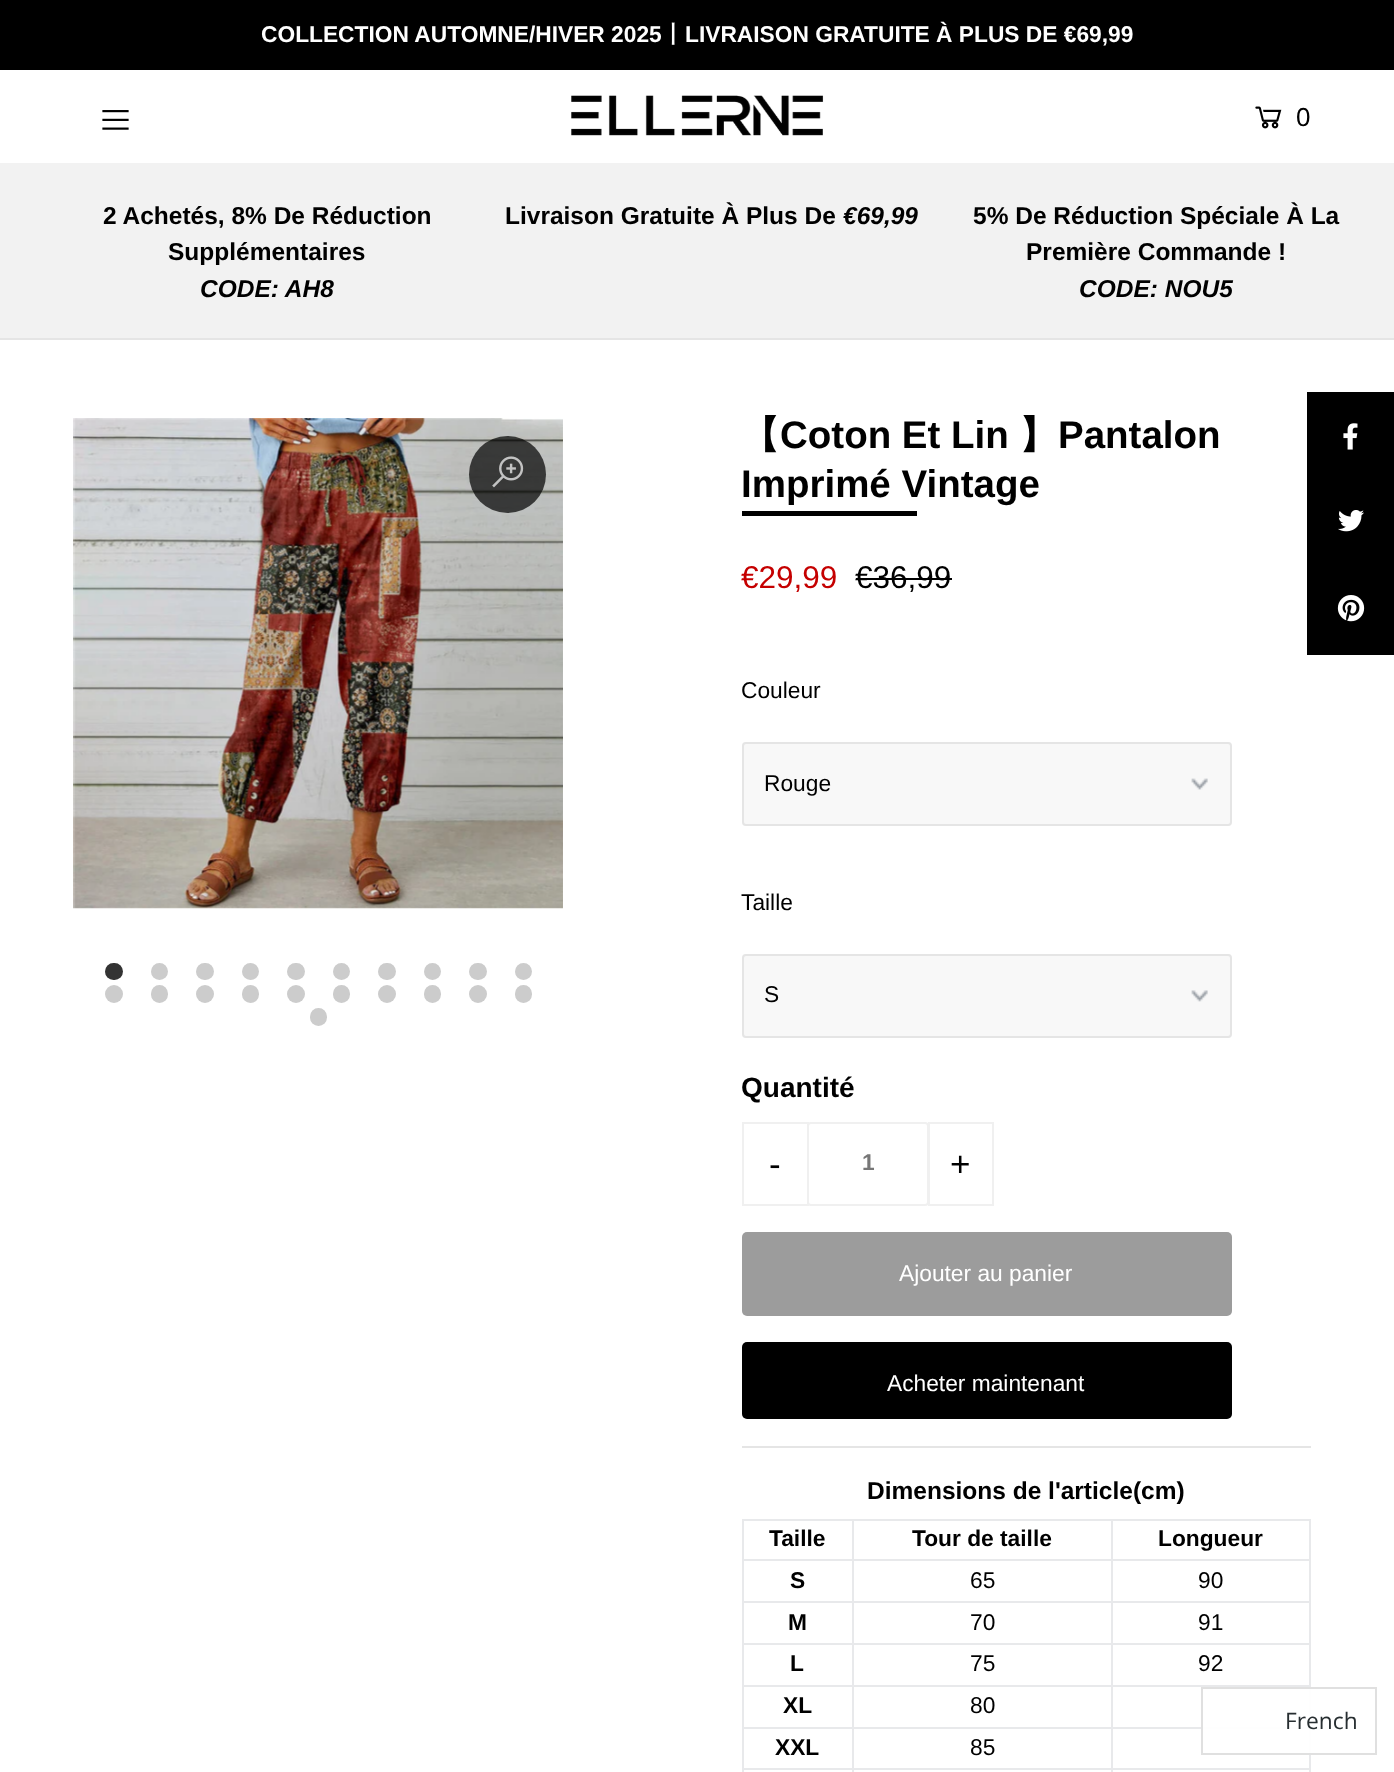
<svg xmlns="http://www.w3.org/2000/svg" xmlns:xlink="http://www.w3.org/1999/xlink" width="1394" height="1772" viewBox="0 0 1394 1772">
<style>
.cls-1{font:bold 22.75px Liberation Sans;fill:#ffffff}
.cls-2{font:bold 22.75px WenQuanYi Zen Hei;fill:#ffffff}
.cls-3{font:26px Liberation Sans;fill:#000000}
.cls-4{font:bold 24.5px Liberation Sans;fill:#000000}
.cls-5{font:italic bold 24.5px Liberation Sans;fill:#000000}
.cls-6{font:bold 38.5px WenQuanYi Zen Hei;fill:#000000}
.cls-7{font:bold 38.5px Liberation Sans;fill:#000000}
.cls-8{font:31.5px Liberation Sans;fill:#c50000}
.cls-9{font:31.5px Liberation Sans;fill:#000000}
.cls-10{font:22.75px Liberation Sans;fill:#000000}
.cls-11{font:bold 28px Liberation Sans;fill:#000000}
.cls-12{font:35px Liberation Sans;fill:#000000}
.cls-13{font:bold 22.75px Liberation Sans;fill:#777777}
.cls-14{font:22.75px Liberation Sans;fill:#ffffff}
.cls-15{font:bold 22.75px Liberation Sans;fill:#000000}
.cls-16{font:22.75px Open Sans;fill:#272e31}
</style>
<rect width="100%" height="100%" fill="#ffffff"/>
<rect fill="#000000" x="0" y="0" width="1394" height="70"/>
<image xlink:href="image0.png" x="102" y="110" width="27" height="20"/>
<image xlink:href="image1.png" x="571" y="95" width="253" height="41"/>
<image xlink:href="image2.png" x="1255" y="106" width="27" height="23"/>
<rect fill="#f2f2f2" x="0" y="163" width="1394" height="175"/>
<rect fill="#e5e5e5" x="0" y="338" width="1394" height="2"/>
<image xlink:href="image3.png" x="73" y="418" width="490" height="491"/>
<circle fill="#000000" fill-opacity="0.7" cx="507.5" cy="474.5" r="38.5"/>
<image xlink:href="image4.png" x="492" y="456" width="32" height="32"/>
<rect fill="#333333" x="105" y="963" width="18" height="17" rx="8.5"/>
<circle fill="#cccccc" cx="159.5" cy="971.5" r="8.5"/>
<rect fill="#cccccc" x="196" y="963" width="18" height="17" rx="8.5"/>
<circle fill="#cccccc" cx="250.5" cy="971.5" r="8.5"/>
<rect fill="#cccccc" x="287" y="963" width="18" height="17" rx="8.5"/>
<circle fill="#cccccc" cx="341.5" cy="971.5" r="8.5"/>
<rect fill="#cccccc" x="378" y="963" width="18" height="17" rx="8.5"/>
<circle fill="#cccccc" cx="432.5" cy="971.5" r="8.5"/>
<rect fill="#cccccc" x="469" y="963" width="18" height="17" rx="8.5"/>
<circle fill="#cccccc" cx="523.5" cy="971.5" r="8.5"/>
<circle fill="#cccccc" cx="114" cy="994" r="9"/>
<rect fill="#cccccc" x="151" y="985" width="17" height="18" rx="8.5"/>
<circle fill="#cccccc" cx="205" cy="994" r="9"/>
<rect fill="#cccccc" x="242" y="985" width="17" height="18" rx="8.5"/>
<circle fill="#cccccc" cx="296" cy="994" r="9"/>
<rect fill="#cccccc" x="333" y="985" width="17" height="18" rx="8.5"/>
<circle fill="#cccccc" cx="387" cy="994" r="9"/>
<rect fill="#cccccc" x="424" y="985" width="17" height="18" rx="8.5"/>
<circle fill="#cccccc" cx="478" cy="994" r="9"/>
<rect fill="#cccccc" x="515" y="985" width="17" height="18" rx="8.5"/>
<rect fill="#cccccc" x="310" y="1008" width="17" height="18" rx="8.5"/>
<rect fill="#000000" x="742" y="511" width="175" height="5"/>
<rect fill="#e5e5e5" x="742" y="1446" width="569" height="2"/>
<rect fill="#000000" x="856" y="578" width="96" height="2"/>
<rect fill="#f8f8f8" x="742" y="742" width="490" height="84" rx="4"/>
<image xlink:href="image5.png" x="1191" y="778" width="17" height="12"/>
<rect fill="none" stroke="#e5e5e5" stroke-width="2" x="743" y="743" width="488" height="82" rx="3"/>
<rect fill="#f8f8f8" x="742" y="954" width="490" height="84" rx="4"/>
<image xlink:href="image6.png" x="1191" y="990" width="17" height="12"/>
<rect fill="none" stroke="#e5e5e5" stroke-width="2" x="743" y="955" width="488" height="82" rx="3"/>
<rect fill="none" stroke="#f0f0f0" stroke-width="2" x="743" y="1123" width="65" height="82"/>
<rect fill="none" stroke="#f0f0f0" stroke-width="2" x="808" y="1123" width="120" height="82" rx="3"/>
<rect fill="none" stroke="#f0f0f0" stroke-width="2" x="929" y="1123" width="64" height="82"/>
<rect fill="#9c9c9c" x="742" y="1232" width="490" height="84" rx="5"/>
<rect fill="#000000" x="742" y="1342" width="490" height="77" rx="5"/>
<rect fill="#e8e9eb" x="742" y="1519" width="569" height="2"/>
<rect fill="#e8e9eb" x="1309" y="1519" width="2" height="253"/>
<rect fill="#e8e9eb" x="742" y="1519" width="2" height="253"/>
<rect fill="#e8e9eb" x="1111" y="1559" width="200" height="2"/>
<rect fill="#e8e9eb" x="1111" y="1601" width="200" height="2"/>
<rect fill="#e8e9eb" x="1111" y="1643" width="200" height="2"/>
<rect fill="#e8e9eb" x="1111" y="1685" width="200" height="2"/>
<rect fill="#e8e9eb" x="1111" y="1727" width="200" height="2"/>
<rect fill="#e8e9eb" x="1111" y="1768" width="200" height="2"/>
<rect fill="#e8e9eb" x="1111" y="1768" width="2" height="4"/>
<rect fill="#e8e9eb" x="852" y="1768" width="261" height="2"/>
<rect fill="#e8e9eb" x="1111" y="1727" width="2" height="42"/>
<rect fill="#e8e9eb" x="852" y="1727" width="261" height="2"/>
<rect fill="#e8e9eb" x="1111" y="1685" width="2" height="44"/>
<rect fill="#e8e9eb" x="852" y="1685" width="261" height="2"/>
<rect fill="#e8e9eb" x="1111" y="1643" width="2" height="44"/>
<rect fill="#e8e9eb" x="852" y="1643" width="261" height="2"/>
<rect fill="#e8e9eb" x="1111" y="1601" width="2" height="44"/>
<rect fill="#e8e9eb" x="852" y="1601" width="261" height="2"/>
<rect fill="#e8e9eb" x="1111" y="1559" width="2" height="44"/>
<rect fill="#e8e9eb" x="852" y="1559" width="261" height="2"/>
<rect fill="#e8e9eb" x="852" y="1768" width="2" height="4"/>
<rect fill="#e8e9eb" x="742" y="1768" width="112" height="2"/>
<rect fill="#e8e9eb" x="852" y="1727" width="2" height="42"/>
<rect fill="#e8e9eb" x="742" y="1727" width="112" height="2"/>
<rect fill="#e8e9eb" x="852" y="1685" width="2" height="44"/>
<rect fill="#e8e9eb" x="742" y="1685" width="112" height="2"/>
<rect fill="#e8e9eb" x="852" y="1643" width="2" height="44"/>
<rect fill="#e8e9eb" x="742" y="1643" width="112" height="2"/>
<rect fill="#e8e9eb" x="852" y="1601" width="2" height="44"/>
<rect fill="#e8e9eb" x="742" y="1601" width="112" height="2"/>
<rect fill="#e8e9eb" x="852" y="1559" width="2" height="44"/>
<rect fill="#e8e9eb" x="742" y="1559" width="112" height="2"/>
<rect fill="#e8e9eb" x="852" y="1519" width="2" height="42"/>
<rect fill="#e8e9eb" x="1111" y="1519" width="2" height="42"/>
<rect fill="#000000" x="1307" y="392" width="87" height="263"/>
<image xlink:href="image7.png" x="1343" y="423" width="15" height="27"/>
<image xlink:href="image8.png" x="1338" y="510" width="26" height="22"/>
<image xlink:href="image9.png" x="1337" y="595" width="28" height="27"/>
<rect fill="#ffffff" fill-opacity="0.95" x="1203" y="1689" width="108" height="64"/>
<rect fill="none" stroke="#e0e0e0" stroke-width="2" x="1202" y="1688" width="174" height="66"/>
<text class="cls-1" x="261" y="42">COLLECTION AUTOMNE/HIVER 2025</text>
<text class="cls-2" x="662" y="42">丨</text>
<text class="cls-1" x="685" y="42">LIVRAISON GRATUITE À PLUS DE €69,99</text>
<text class="cls-3" x="1296" y="126">0</text>
<text class="cls-4" x="103" y="224">2 Achetés, 8% De Réduction</text>
<text class="cls-4" x="168" y="260">Supplémentaires</text>
<text class="cls-5" x="200" y="297">CODE: AH8</text>
<text class="cls-4" x="505" y="224">Livraison Gratuite À Plus De</text>
<text class="cls-5" x="843" y="224">€69,99</text>
<text class="cls-4" x="973" y="224">5% De Réduction Spéciale À La</text>
<text class="cls-4" x="1026" y="260">Première Commande !</text>
<text class="cls-5" x="1079" y="297">CODE: NOU5</text>
<text class="cls-6" x="741" y="448">【</text>
<text class="cls-7" x="780" y="448">Coton Et Lin</text>
<text class="cls-6" x="1019" y="448">】</text>
<text class="cls-7" x="1058" y="448">Pantalon</text>
<text class="cls-7" x="741" y="497">Imprimé Vintage</text>
<text class="cls-8" x="741" y="588">€29,99</text>
<text class="cls-9" x="855" y="588">€36,99</text>
<text class="cls-10" x="741" y="698">Couleur</text>
<text class="cls-10" x="764" y="791">Rouge</text>
<text class="cls-10" x="741" y="910">Taille</text>
<text class="cls-10" x="764" y="1002">S</text>
<text class="cls-11" x="741" y="1097">Quantité</text>
<text class="cls-12" x="769" y="1176">-</text>
<text class="cls-13" x="862" y="1170">1</text>
<text class="cls-12" x="950" y="1176">+</text>
<text class="cls-14" x="899" y="1281">Ajouter au panier</text>
<text class="cls-14" x="887" y="1391">Acheter maintenant</text>
<text class="cls-4" x="867" y="1499">Dimensions de l'article(cm)</text>
<text class="cls-15" x="769" y="1546">Taille</text>
<text class="cls-15" x="912" y="1546">Tour de taille</text>
<text class="cls-15" x="1158" y="1546">Longueur</text>
<text class="cls-15" x="790" y="1588">S</text>
<text class="cls-10" x="970" y="1588">65</text>
<text class="cls-10" x="1198" y="1588">90</text>
<text class="cls-15" x="788" y="1630">M</text>
<text class="cls-10" x="970" y="1630">70</text>
<text class="cls-10" x="1198" y="1630">91</text>
<text class="cls-15" x="790" y="1671">L</text>
<text class="cls-10" x="970" y="1671">75</text>
<text class="cls-10" x="1198" y="1671">92</text>
<text class="cls-15" x="783" y="1713">XL</text>
<text class="cls-10" x="970" y="1713">80</text>
<text class="cls-15" x="775" y="1755">XXL</text>
<text class="cls-10" x="970" y="1755">85</text>
<text class="cls-16" x="1285" y="1729">French</text>
</svg>
